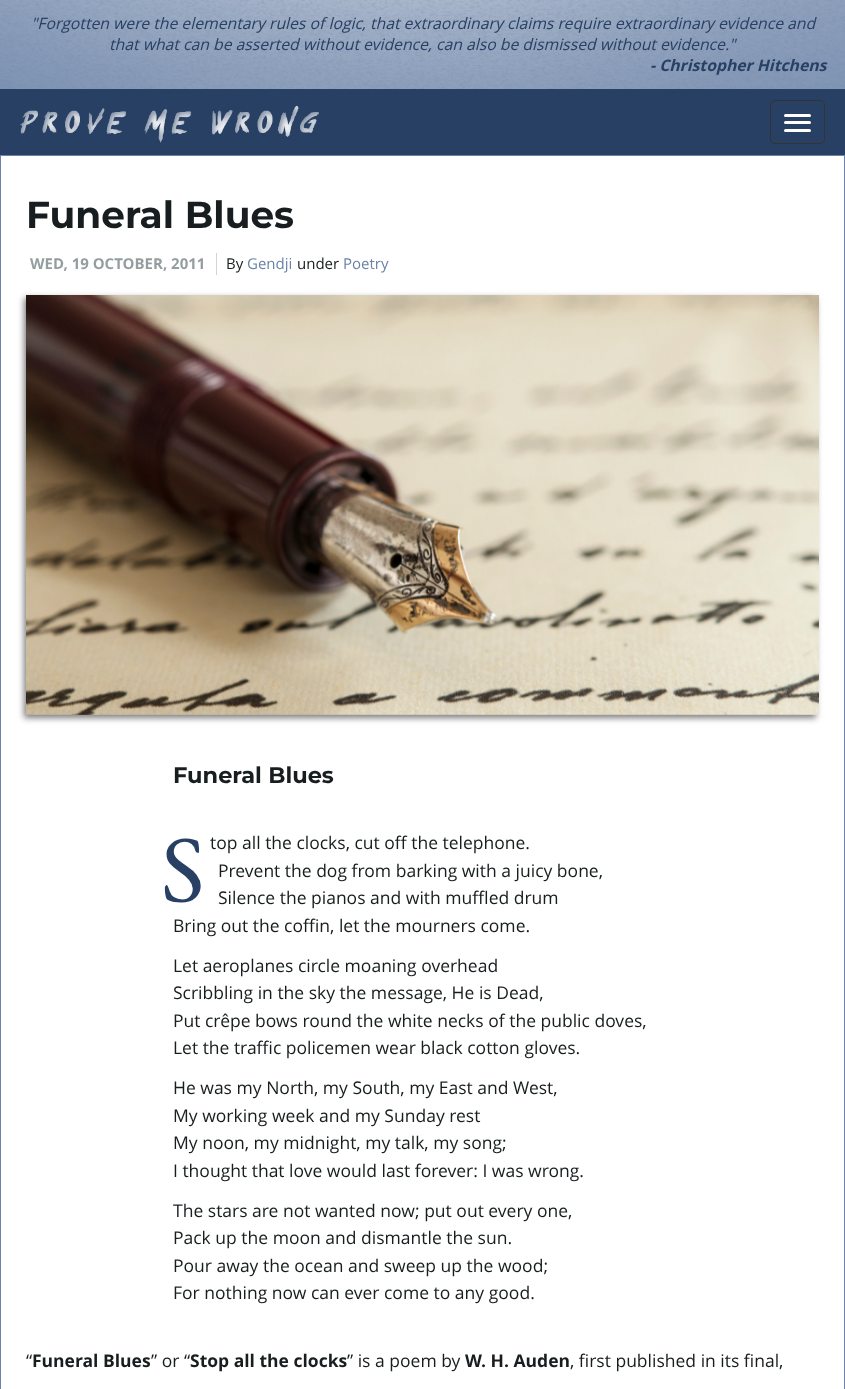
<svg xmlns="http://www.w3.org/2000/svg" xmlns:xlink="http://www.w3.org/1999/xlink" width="845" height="1389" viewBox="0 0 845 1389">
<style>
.cls-1{font:italic 15.75px Open Sans;fill:#284064}
.cls-2{font:italic bold 15.75px Open Sans;fill:#284064}
.cls-3{font:bold 37.5px Montserrat;fill:#181e1f}
.cls-4{font:bold 15px Open Sans;fill:#949ea0}
.cls-5{font:15px Open Sans;fill:#181e1f}
.cls-6{font:15px Open Sans;fill:#6b83a9}
.cls-7{font:bold 22.5px Montserrat;fill:#181e1f}
.cls-8{font:94px EB Garamond;fill:#284064}
.cls-9{font:17.5px Open Sans;fill:#181e1f}
.cls-10{font:bold 17.5px Open Sans;fill:#181e1f}
</style>
<rect width="100%" height="100%" fill="#6b83a8"/>
<image xlink:href="image0.png" x="0" y="0" width="845" height="89"/>
<rect fill="#284064" x="0" y="89" width="845" height="66"/>
<image xlink:href="image1.png" x="20" y="105" width="299" height="38"/>
<rect fill="none" stroke="#333333" x="770.5" y="100.5" width="54" height="43" rx="4.5"/>
<rect fill="#ffffff" x="784" y="114" width="27" height="3" rx="1.5"/>
<rect fill="#ffffff" x="784" y="121" width="27" height="3" rx="1.5"/>
<rect fill="#ffffff" x="784" y="129" width="27" height="3" rx="1.5"/>
<rect fill="#ffffff" x="1" y="156" width="843" height="1233"/>
<rect fill="#d1d5d6" x="216" y="253" width="1" height="22"/>
<rect fill="#7c7c7c" filter="blur(3px)" x="24" y="298" width="792" height="420"/>
<image xlink:href="image2.png" x="26" y="295" width="793" height="420"/>
<text class="cls-1" x="31" y="29">"Forgotten were the elementary rules of logic, that extraordinary claims require extraordinary evidence and</text>
<text class="cls-1" x="109" y="50">that what can be asserted without evidence, can also be dismissed without evidence."</text>
<text class="cls-2" x="650" y="71">- Christopher Hitchens</text>
<text class="cls-3" x="26" y="228">Funeral Blues</text>
<text class="cls-4" x="30" y="269">WED, 19 OCTOBER, 2011</text>
<text class="cls-5" x="226" y="269">By</text>
<text class="cls-6" x="247" y="269">Gendji</text>
<text class="cls-5" x="297" y="269">under</text>
<text class="cls-6" x="343" y="269">Poetry</text>
<text class="cls-7" x="173" y="783">Funeral Blues</text>
<text class="cls-8" x="161" y="901">S</text>
<text class="cls-9" x="210" y="849">top all the clocks, cut off the telephone.</text>
<text class="cls-9"><tspan x="218" y="877">Prevent the dog from barking with a juicy bone,</tspan><tspan x="218" y="904">Silence the pianos and with muffled drum</tspan></text>
<text class="cls-9" x="173" y="932">Bring out the coffin, let the mourners come.</text>
<text class="cls-9"><tspan x="173" y="972">Let aeroplanes circle moaning overhead</tspan><tspan x="173" y="999">Scribbling in the sky the message, He is Dead,</tspan><tspan x="173" y="1027">Put crêpe bows round the white necks of the public doves,</tspan><tspan x="173" y="1054">Let the traffic policemen wear black cotton gloves.</tspan></text>
<text class="cls-9"><tspan x="173" y="1094">He was my North, my South, my East and West,</tspan><tspan x="173" y="1122">My working week and my Sunday rest</tspan><tspan x="173" y="1149">My noon, my midnight, my talk, my song;</tspan><tspan x="173" y="1177">I thought that love would last forever: I was wrong.</tspan></text>
<text class="cls-9"><tspan x="173" y="1217">The stars are not wanted now; put out every one,</tspan><tspan x="173" y="1244">Pack up the moon and dismantle the sun.</tspan><tspan x="173" y="1272">Pour away the ocean and sweep up the wood;</tspan><tspan x="173" y="1299">For nothing now can ever come to any good.</tspan></text>
<text class="cls-9" x="26" y="1367">“</text>
<text class="cls-10" x="32" y="1367">Funeral Blues</text>
<text class="cls-9" x="151" y="1367">” or “</text>
<text class="cls-10" x="190" y="1367">Stop all the clocks</text>
<text class="cls-9" x="347" y="1367">” is a poem by</text>
<text class="cls-10" x="465" y="1367">W. H. Auden</text>
<text class="cls-9" x="570" y="1367">, first published in its final,</text>
</svg>
